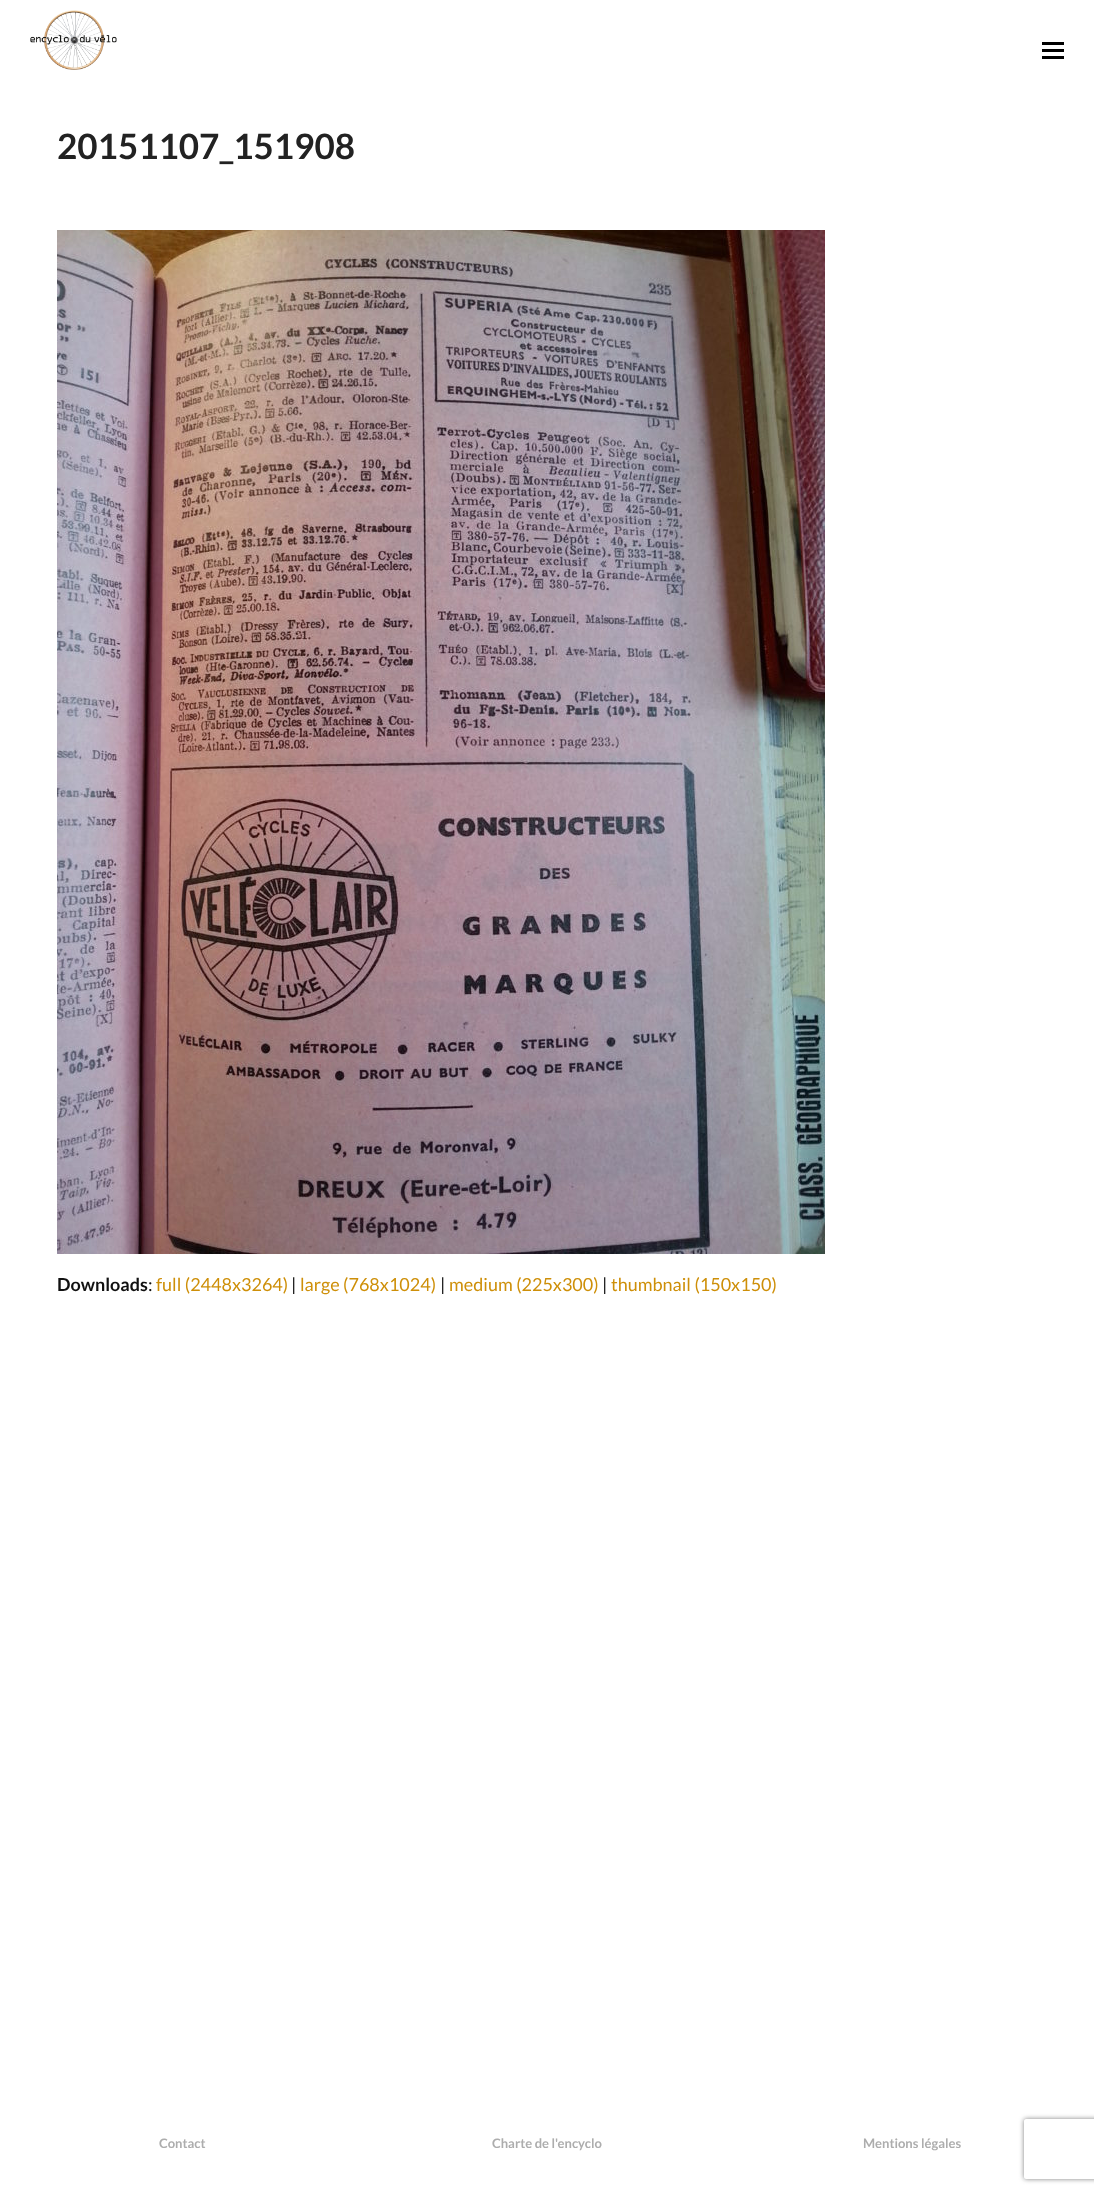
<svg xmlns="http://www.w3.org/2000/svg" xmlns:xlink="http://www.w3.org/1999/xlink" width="1094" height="2193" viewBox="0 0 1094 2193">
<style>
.cls-1{font:bold 35px Lato;fill:#222222}
.cls-2{font:bold 18px Lato;fill:#111111}
.cls-3{font:18px Lato;fill:#111111}
.cls-4{font:18px Lato;fill:#ce8f08}
.cls-5{font:bold 13px Lato;fill:#adadad}
</style>
<defs>
<clipPath id="clip1"><path d="M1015 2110H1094V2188H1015ZM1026 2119H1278C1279 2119 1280 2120 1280 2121V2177C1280 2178 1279 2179 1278 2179H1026C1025 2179 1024 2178 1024 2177V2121C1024 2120 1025 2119 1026 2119Z" clip-rule="evenodd"/></clipPath>
</defs>
<rect width="100%" height="100%" fill="#ffffff"/>
<image xlink:href="image0.png" x="30" y="10" width="87" height="60"/>
<rect fill="#000000" x="1042" y="49" width="22" height="3"/>
<rect fill="#000000" x="1042" y="42" width="22" height="3"/>
<rect fill="#000000" x="1042" y="56" width="22" height="3"/>
<image xlink:href="image1.png" x="57" y="230" width="768" height="1024"/>
<g clip-path="url(#clip1)">
<rect fill="#808080" filter="blur(2.5px)" x="1024" y="2119" width="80" height="60" rx="2"/>
</g>
<text class="cls-1" x="57" y="159">20151107_151908</text>
<text class="cls-2" x="57" y="1291">Downloads</text>
<text class="cls-3" x="148" y="1291">:</text>
<text class="cls-4" x="156" y="1291">full (2448x3264)</text>
<text class="cls-3" x="291" y="1291">|</text>
<text class="cls-4" x="300" y="1291">large (768x1024)</text>
<text class="cls-3" x="440" y="1291">|</text>
<text class="cls-4" x="449" y="1291">medium (225x300)</text>
<text class="cls-3" x="602" y="1291">|</text>
<text class="cls-4" x="611" y="1291">thumbnail (150x150)</text>
<text class="cls-5" x="159" y="2148">Contact</text>
<text class="cls-5" x="492" y="2148">Charte de l'encyclo</text>
<text class="cls-5" x="863" y="2148">Mentions légales</text>
</svg>
